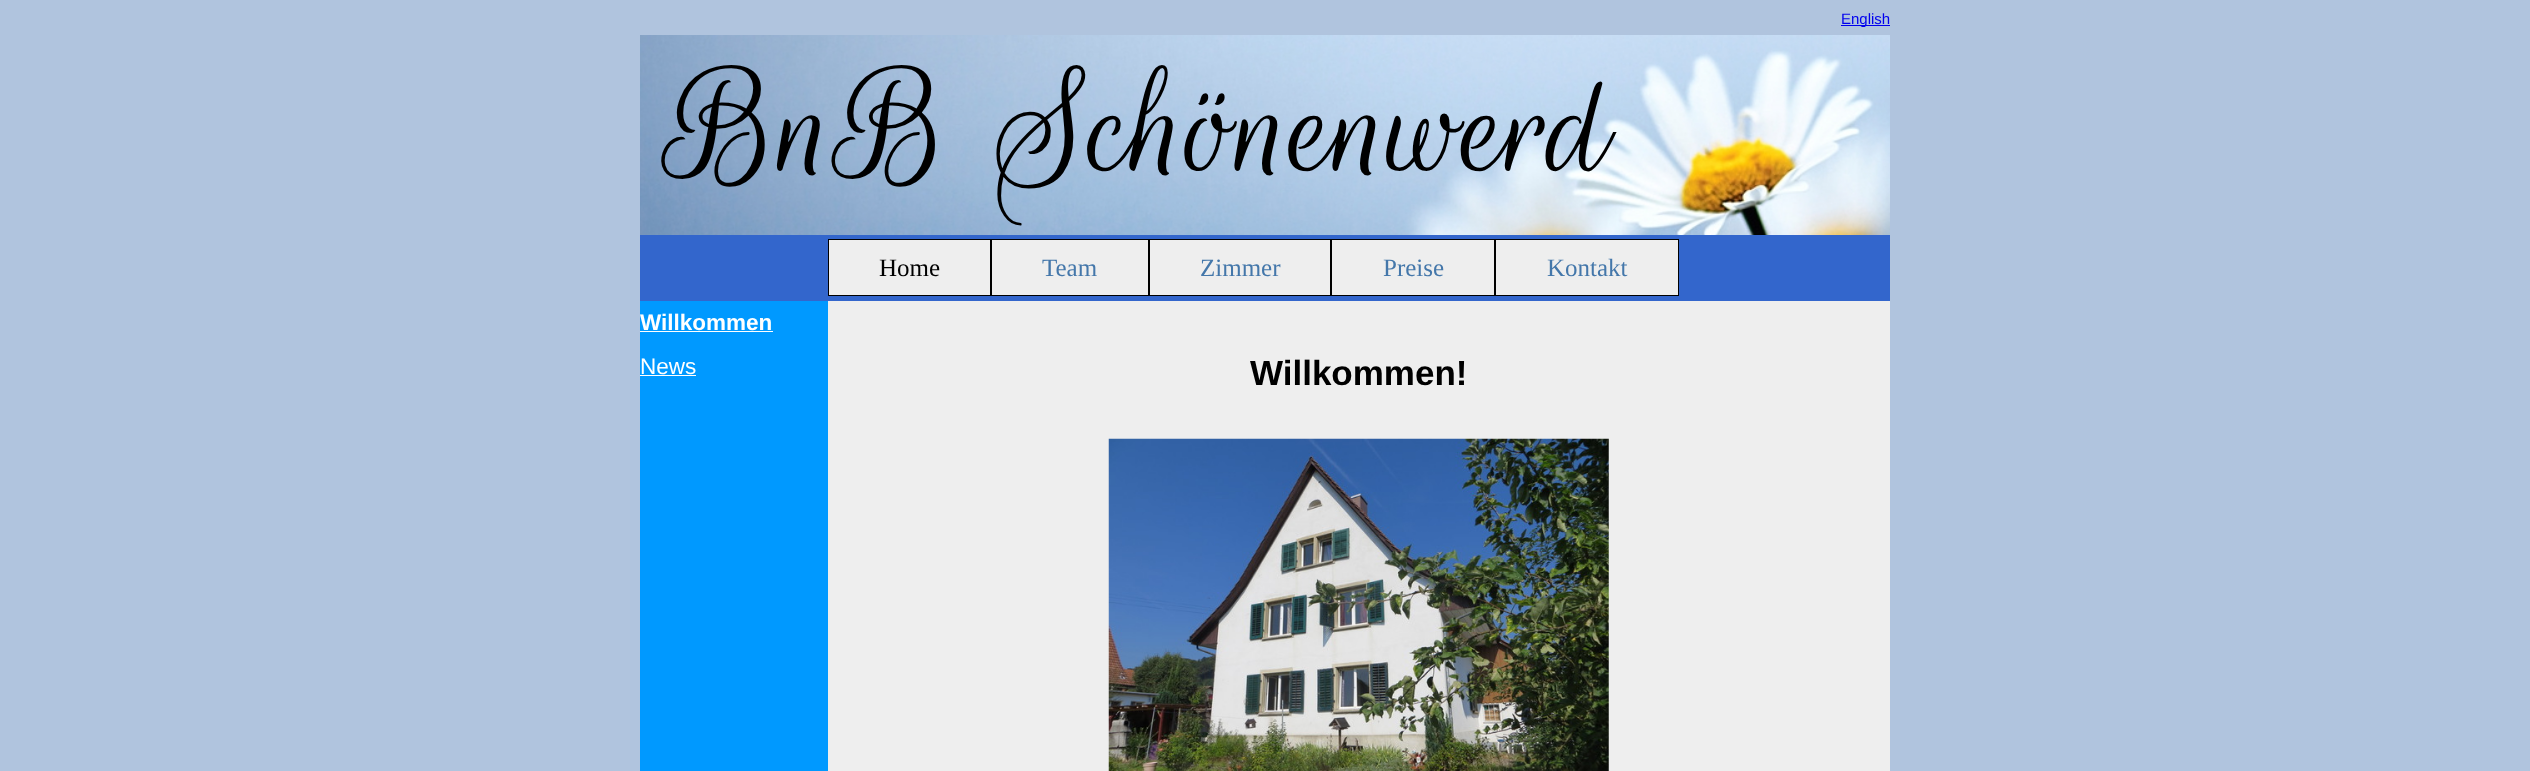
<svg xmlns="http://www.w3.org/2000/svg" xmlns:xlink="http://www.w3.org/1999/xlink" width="2530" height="771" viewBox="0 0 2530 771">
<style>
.cls-1{font:15px Liberation Sans;fill:#0000ee}
.cls-2{font:162.5px Rouge Script;fill:#000000}
.cls-3{font:25px Liberation Serif;fill:#000000}
.cls-4{font:25px Liberation Serif;fill:#4477aa}
.cls-5{font:bold 22.5px Liberation Sans;fill:#ffffff}
.cls-6{font:22.5px Liberation Sans;fill:#ffffff}
.cls-7{font:bold 35px Liberation Sans;fill:#000000}
</style>
<rect width="100%" height="100%" fill="#b0c4de"/>
<rect fill="#0000ee" x="1841" y="25" width="49" height="1"/>
<image xlink:href="image0.png" x="640" y="35" width="1250" height="200"/>
<rect fill="#3366cc" x="640" y="235" width="1250" height="66"/>
<rect fill="#eeeeee" stroke="#000000" x="828.5" y="239.5" width="162" height="56"/>
<rect fill="#eeeeee" stroke="#000000" x="991.5" y="239.5" width="157" height="56"/>
<rect fill="#eeeeee" stroke="#000000" x="1149.5" y="239.5" width="181" height="56"/>
<rect fill="#eeeeee" stroke="#000000" x="1331.5" y="239.5" width="163" height="56"/>
<rect fill="#eeeeee" stroke="#000000" x="1495.5" y="239.5" width="183" height="56"/>
<rect fill="#0099ff" x="640" y="301" width="188" height="470"/>
<rect fill="#ffffff" x="640" y="331" width="133" height="1"/>
<rect fill="#ffffff" x="640" y="375" width="56" height="1"/>
<rect fill="#eeeeee" x="828" y="301" width="1062" height="470"/>
<image xlink:href="image1.png" x="1108" y="438" width="501" height="333"/>
<text class="cls-1" x="1841" y="24">English</text>
<text class="cls-2" x="665" y="171">BnB Schönenwerd</text>
<text class="cls-3" x="879" y="276">Home</text>
<text class="cls-4" x="1042" y="276">Team</text>
<text class="cls-4" x="1200" y="276">Zimmer</text>
<text class="cls-4" x="1383" y="276">Preise</text>
<text class="cls-4" x="1547" y="276">Kontakt</text>
<text class="cls-5" x="640" y="330">Willkommen</text>
<text class="cls-6" x="640" y="374">News</text>
<text class="cls-7" x="1250" y="385">Willkommen!</text>
</svg>
